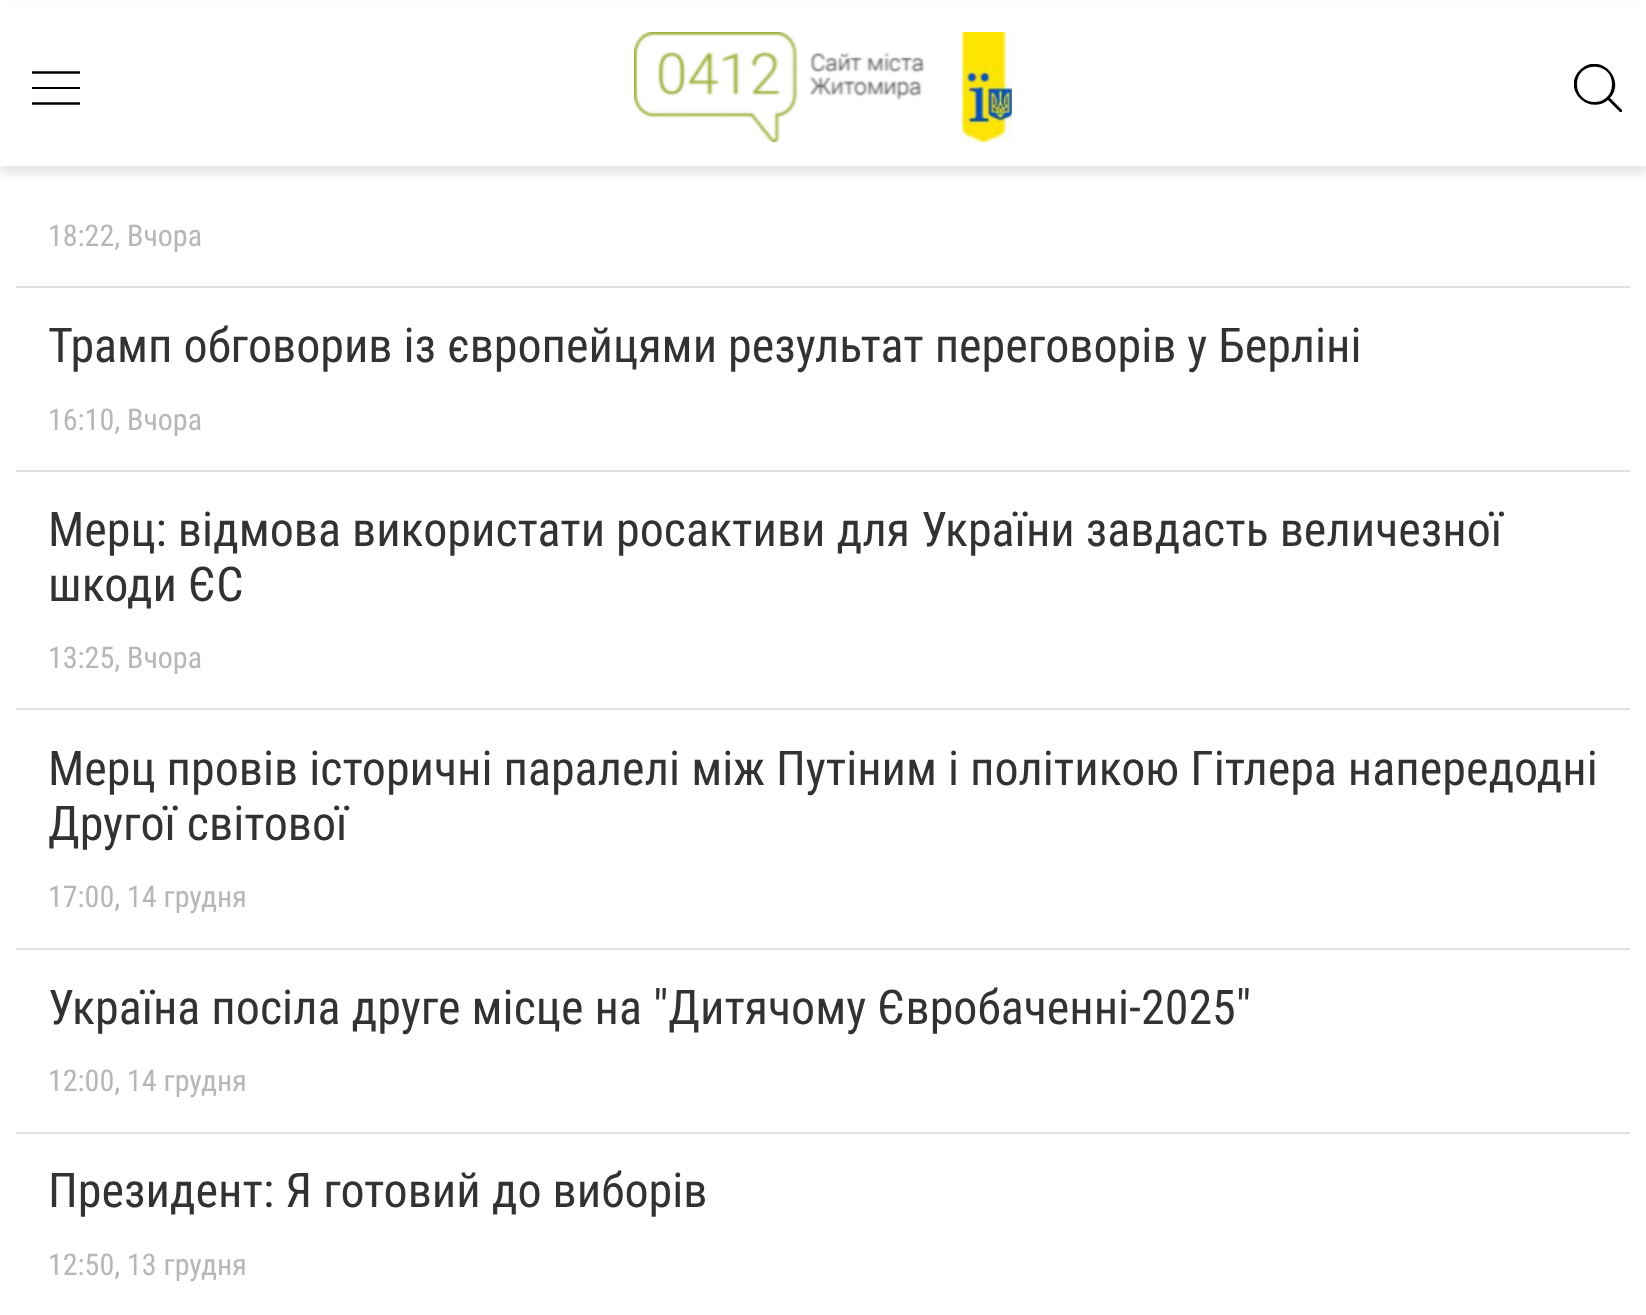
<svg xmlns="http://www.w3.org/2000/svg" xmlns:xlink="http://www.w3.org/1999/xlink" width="1646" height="1315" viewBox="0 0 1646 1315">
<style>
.cls-1{font:30px Roboto Condensed;fill:#b7b7b7}
.cls-2{font:48px Roboto Condensed;fill:#323232}
</style>
<defs>
<clipPath id="clip1"><rect x="1574" y="64" width="48" height="48"/></clipPath>
</defs>
<rect width="100%" height="100%" fill="#ffffff"/>
<rect fill="#000000" fill-opacity="0.1" filter="blur(4px)" x="0" y="8" width="1646" height="166"/>
<rect fill="#ffffff" x="0" y="3" width="1646" height="163"/>
<path fill="none" stroke="#000000" stroke-width="2.4" d="M32 72.5H80"/>
<rect fill="#000000" x="32" y="87" width="48" height="2"/>
<path fill="none" stroke="#000000" stroke-width="2.4" d="M32 103.5H80"/>
<image xlink:href="image0.png" x="634" y="32" width="378" height="110"/>
<g clip-path="url(#clip1)">
<path fill="#000000" d="M1622 110L1610 98C1627 79 1599 51 1580 70C1561 89 1589 116 1608 100L1620 112C1621 113 1623 111 1622 110ZM1577 84C1577 61 1612 61 1612 84C1612 108 1577 108 1577 84Z"/>
</g>
<rect fill="#e0e0e0" x="16" y="286" width="1614" height="2"/>
<rect fill="#e0e0e0" x="16" y="470" width="1614" height="2"/>
<rect fill="#e0e0e0" x="16" y="708" width="1614" height="2"/>
<rect fill="#e0e0e0" x="16" y="948" width="1614" height="2"/>
<rect fill="#e0e0e0" x="16" y="1132" width="1614" height="2"/>
<text class="cls-1" x="48" y="246">18:22, Вчора</text>
<text class="cls-2" x="48" y="362">Трамп обговорив із європейцями результат переговорів у Берліні</text>
<text class="cls-1" x="48" y="430">16:10, Вчора</text>
<text class="cls-2"><tspan x="48" y="546">Мерц: відмова використати росактиви для України завдасть величезної</tspan><tspan x="48" y="601">шкоди ЄС</tspan></text>
<text class="cls-1" x="48" y="668">13:25, Вчора</text>
<text class="cls-2"><tspan x="48" y="785">Мерц провів історичні паралелі між Путіним і політикою Гітлера напередодні</tspan><tspan x="48" y="840">Другої світової</tspan></text>
<text class="cls-1" x="48" y="907">17:00, 14 грудня</text>
<text class="cls-2" x="48" y="1024">Україна посіла друге місце на "Дитячому Євробаченні-2025"</text>
<text class="cls-1" x="48" y="1091">12:00, 14 грудня</text>
<text class="cls-2" x="48" y="1207">Президент: Я готовий до виборів</text>
<text class="cls-1" x="48" y="1275">12:50, 13 грудня</text>
</svg>
